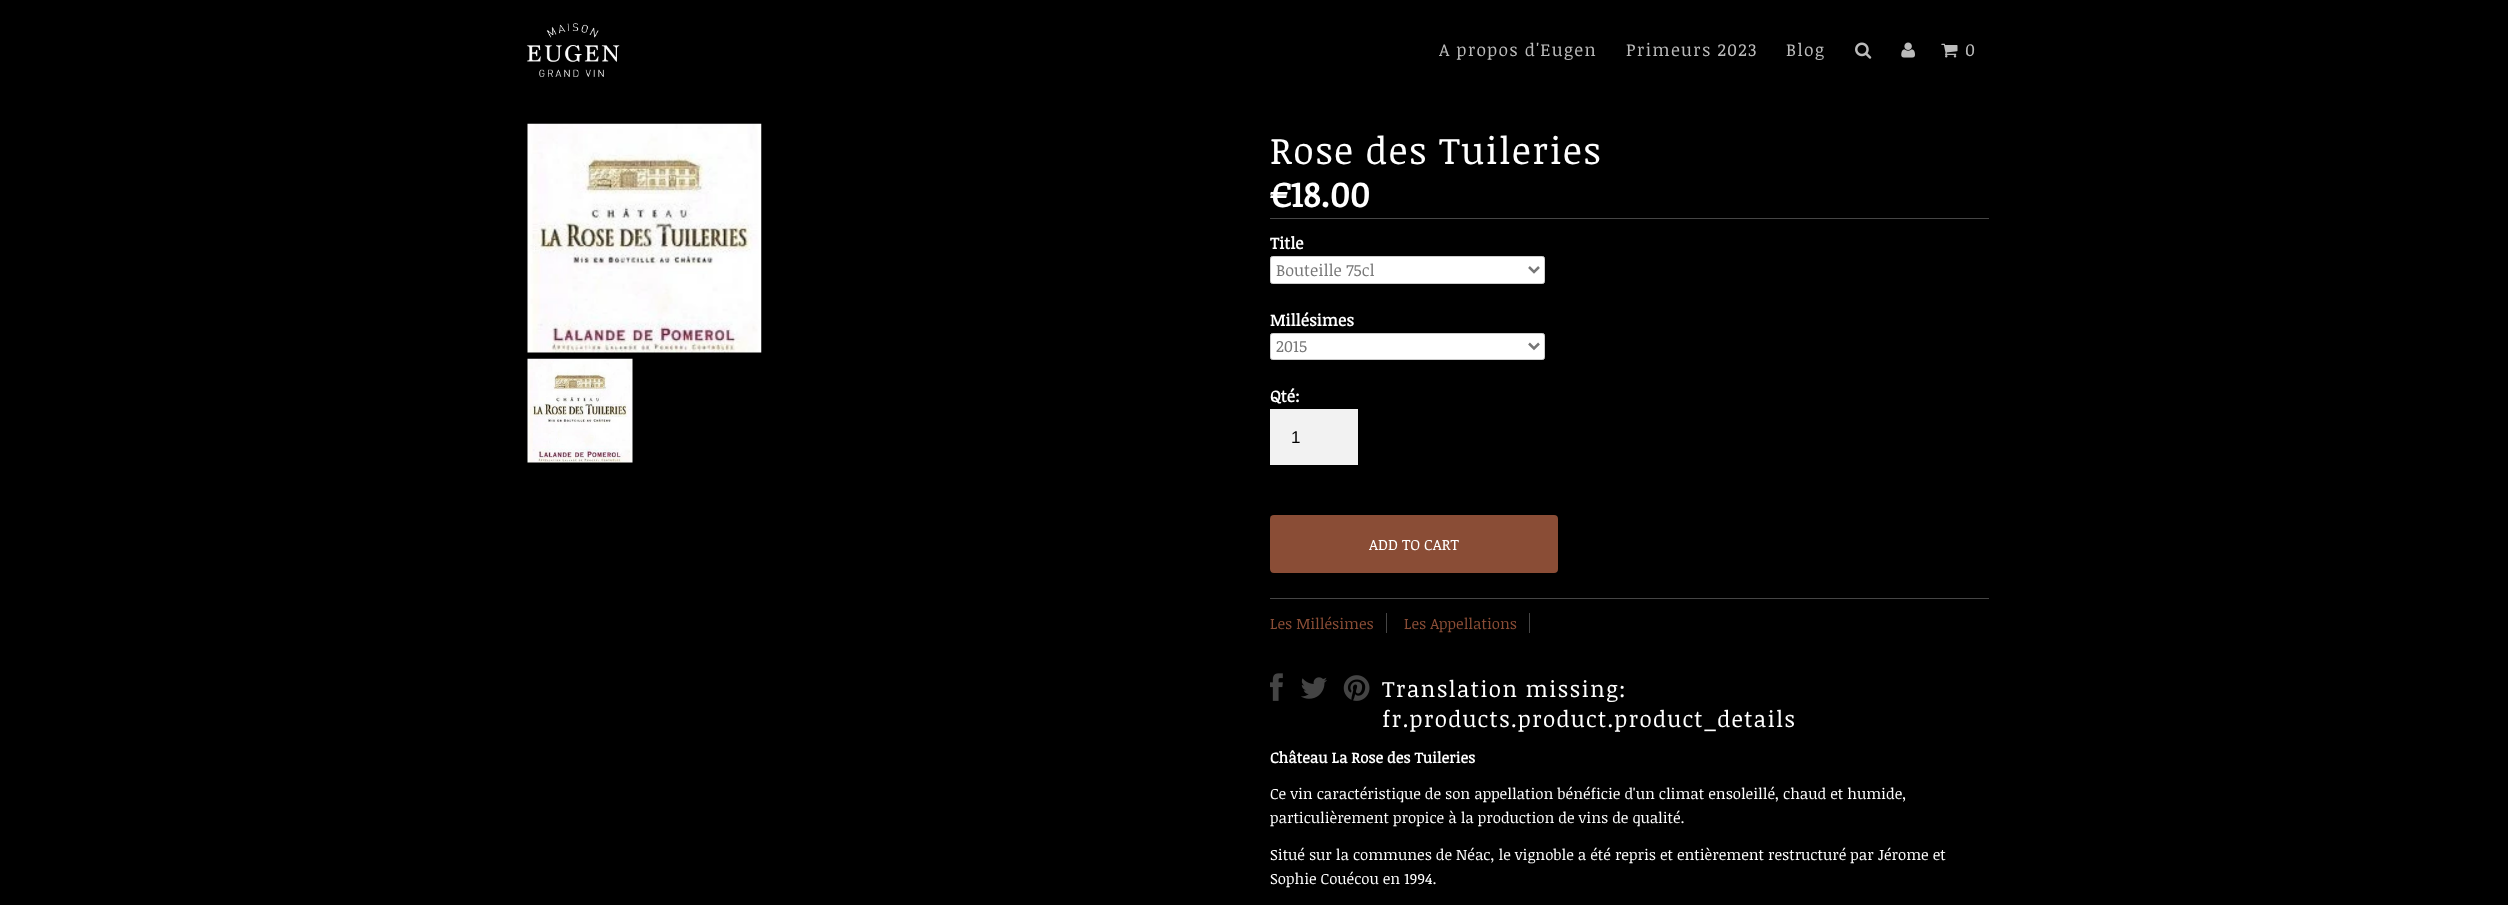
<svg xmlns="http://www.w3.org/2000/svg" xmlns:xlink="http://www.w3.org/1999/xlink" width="2508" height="905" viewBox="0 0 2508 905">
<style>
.cls-1{font:17.5px Noticia Text;letter-spacing:1.25px;fill:#bbbbbb}
.cls-2{font:37.5px Noticia Text;letter-spacing:1.25px;fill:#ffffff}
.cls-3{font:bold 35px Noticia Text;fill:#ffffff}
.cls-4{font:bold 16.25px Noticia Text;fill:#ffffff}
.cls-5{font:16.25px Noticia Text;fill:#777777}
.cls-6{font:17px Liberation Sans;fill:#000000}
.cls-7{font:15px Noticia Text;fill:#ffffff}
.cls-8{font:15px Noticia Text;fill:#8a4d36}
.cls-9{font:22.5px Noticia Text;letter-spacing:1.25px;fill:#ffffff}
.cls-10{font:bold 15px Noticia Text;fill:#ffffff}
</style>
<rect width="100%" height="100%" fill="#000000"/>
<image xlink:href="image0.png" x="526" y="23" width="94" height="54"/>
<image xlink:href="image1.png" x="1855" y="42" width="17" height="17"/>
<image xlink:href="image2.png" x="1901" y="42" width="14" height="16"/>
<image xlink:href="image3.png" x="1941" y="43" width="17" height="15"/>
<image xlink:href="image4.png" x="527" y="123" width="235" height="230"/>
<image xlink:href="image5.png" x="527" y="358" width="106" height="105"/>
<rect fill="#454545" x="1270" y="218" width="719" height="1"/>
<rect fill="#454545" x="1270" y="598" width="719" height="1"/>
<rect fill="#ffffff" stroke="#cccccc" x="1270.5" y="256.5" width="274" height="27" rx="2"/>
<path fill="none" stroke="#777777" stroke-width="2.5" d="M1529 267L1534 272L1539 267"/>
<rect fill="#ffffff" stroke="#cccccc" x="1270.5" y="333.5" width="274" height="26" rx="2"/>
<path fill="none" stroke="#777777" stroke-width="2.5" d="M1529 343.5L1534 348.5L1539 343.5"/>
<rect fill="#f2f2f2" x="1270" y="409" width="88" height="56"/>
<rect fill="#8a4d36" x="1270" y="515" width="288" height="58" rx="4"/>
<rect fill="#454545" x="1386" y="613" width="1" height="20"/>
<rect fill="#454545" x="1529" y="613" width="1" height="20"/>
<image xlink:href="image6.png" x="1270" y="673" width="13" height="28"/>
<image xlink:href="image7.png" x="1301" y="677" width="26" height="22"/>
<image xlink:href="image8.png" x="1343" y="675" width="27" height="26"/>
<text class="cls-1" x="1439" y="56">A propos d'Eugen</text>
<text class="cls-1" x="1626" y="56">Primeurs 2023</text>
<text class="cls-1" x="1786" y="56">Blog</text>
<text class="cls-1" x="1965" y="56">0</text>
<text class="cls-2" x="1270" y="164">Rose des Tuileries</text>
<text class="cls-3" x="1270" y="207">€18.00</text>
<text class="cls-4" x="1270" y="249">Title</text>
<text class="cls-5" x="1276" y="276">Bouteille 75cl</text>
<text class="cls-4" x="1270" y="326">Millésimes</text>
<text class="cls-5" x="1276" y="352">2015</text>
<text class="cls-4" x="1270" y="402">Qté:</text>
<text class="cls-6" x="1291" y="443">1</text>
<text class="cls-7" x="1369" y="550">ADD TO CART</text>
<text class="cls-8" x="1270" y="629">Les Millésimes</text>
<text class="cls-8" x="1404" y="629">Les Appellations</text>
<text class="cls-9"><tspan x="1382" y="697">Translation missing:</tspan><tspan x="1382" y="727">fr.products.product.product_details</tspan></text>
<text class="cls-10" x="1270" y="763">Château La Rose des Tuileries</text>
<text class="cls-7"><tspan x="1270" y="799">Ce vin caractéristique de son appellation bénéficie d'un climat ensoleillé, chaud et humide,</tspan><tspan x="1270" y="823">particulièrement propice à la production de vins de qualité.</tspan></text>
<text class="cls-7"><tspan x="1270" y="860">Situé sur la communes de Néac, le vignoble a été repris et entièrement restructuré par Jérome et</tspan><tspan x="1270" y="884">Sophie Couécou en 1994.</tspan></text>
</svg>
